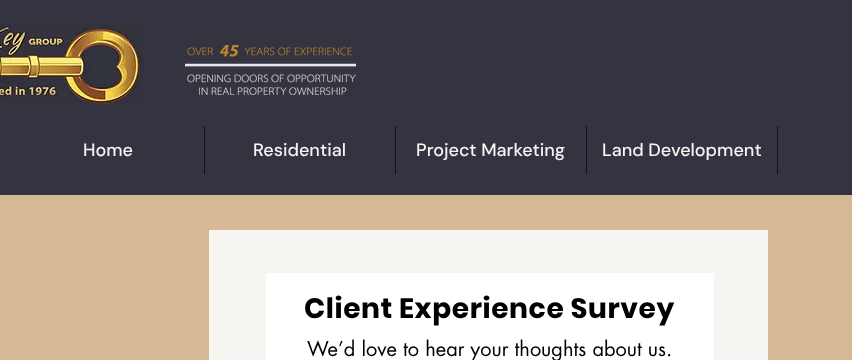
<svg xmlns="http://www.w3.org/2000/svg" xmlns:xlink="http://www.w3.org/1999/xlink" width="852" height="360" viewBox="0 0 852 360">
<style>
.cls-1{font:500 18px DM Sans;fill:#f7f5f2}
.cls-2{font:bold 28px Poppins;letter-spacing:0.6px;fill:#000000}
.cls-3{font:20px futura;fill:#000000}
</style>
<rect width="100%" height="100%" fill="#d7ba95"/>
<rect fill="#33343f" x="0" y="0" width="852" height="195"/>
<image xlink:href="image0.png" x="0" y="24" width="145" height="81"/>
<image xlink:href="image1.png" x="185" y="45" width="171" height="50"/>
<rect fill="#111216" x="204" y="126" width="1" height="48"/>
<rect fill="#111216" x="395" y="126" width="1" height="48"/>
<rect fill="#111216" x="586" y="126" width="1" height="48"/>
<rect fill="#111216" x="777" y="126" width="1" height="48"/>
<rect fill="#f7f5f2" x="209" y="230" width="559" height="130"/>
<rect fill="#ffffff" x="266" y="273" width="448" height="87"/>
<text class="cls-1" x="83" y="156">Home</text>
<text class="cls-1" x="253" y="156">Residential</text>
<text class="cls-1" x="416" y="156">Project Marketing</text>
<text class="cls-1" x="602" y="156">Land Development</text>
<text class="cls-2" x="304" y="318">Client Experience Survey</text>
<text class="cls-3" x="307" y="356">We’d love to hear your thoughts about us.</text>
</svg>
